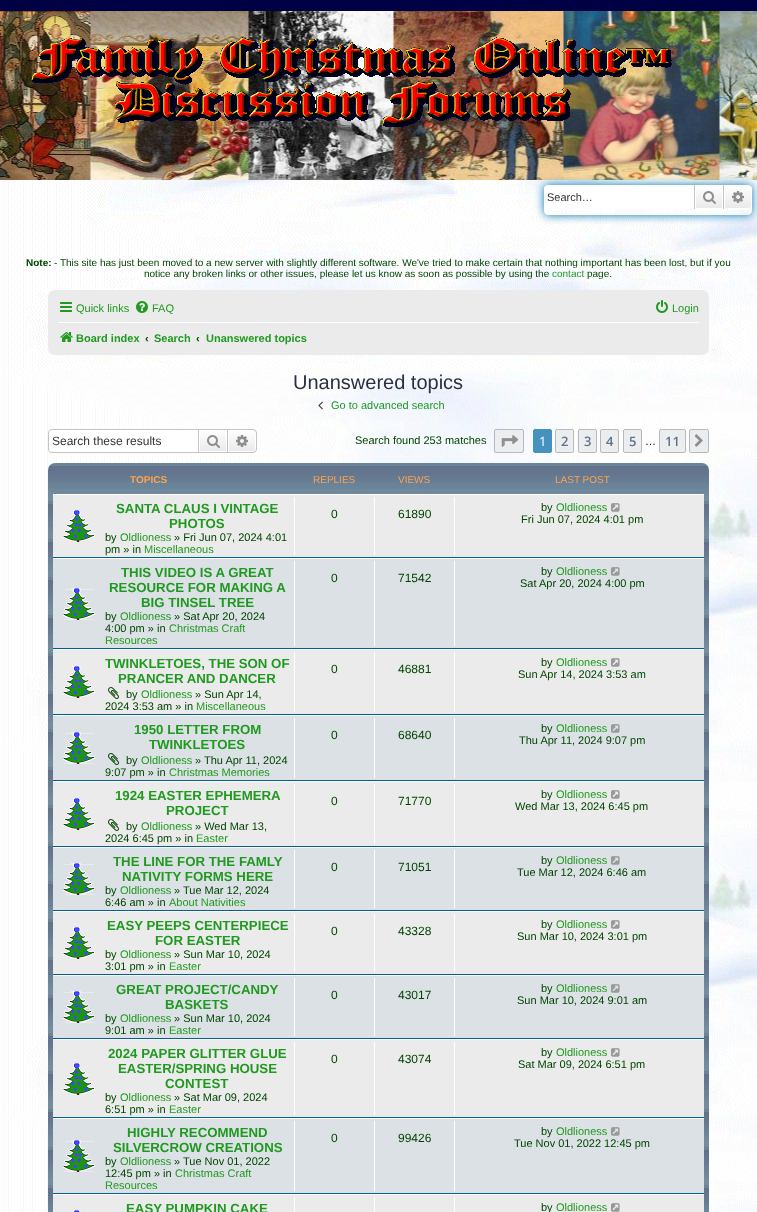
<svg xmlns="http://www.w3.org/2000/svg" xmlns:xlink="http://www.w3.org/1999/xlink" width="757" height="1212" viewBox="0 0 757 1212">
<style>
.cls-1{font:11px Liberation Sans;fill:#333333}
.cls-2{font:bold 10px Liberation Sans;fill:#004400}
.cls-3{font:10px Liberation Sans;fill:#004400}
.cls-4{font:10px Liberation Sans;fill:#209920}
.cls-5{font:11px Liberation Sans;fill:#209920}
.cls-6{font:bold 11px Liberation Sans;fill:#209920}
.cls-7{font:bold 11px Liberation Sans;fill:#004400}
.cls-8{font:20px Liberation Sans;fill:#28313f}
.cls-9{font:12px Liberation Sans;fill:#333333}
.cls-10{font:11px Liberation Sans;fill:#004400}
.cls-11{font:13px Open Sans;fill:#ffffff}
.cls-12{font:600 13px Open Sans;fill:#5c758c}
.cls-13{font:11px Liberation Sans;fill:#000000}
.cls-14{font:bold 10px Liberation Sans;fill:#ffa34f}
.cls-15{font:10px Liberation Sans;fill:#ffa34f}
.cls-16{font:bold 13.25px Liberation Sans;fill:#209920}
.cls-17{font:12px Liberation Sans;fill:#004400}
</style>
<defs>
<clipPath id="clip1"><path d="M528 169H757V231H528ZM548 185H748C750 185 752 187 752 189V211C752 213 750 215 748 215H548C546 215 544 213 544 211V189C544 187 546 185 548 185Z" clip-rule="evenodd"/></clipPath>
<linearGradient id="g1" gradientUnits="userSpaceOnUse" x1="709" y1="185" x2="709" y2="209"><stop offset="0" stop-color="#ffffff"/><stop offset="1" stop-color="#e9e9e9"/></linearGradient>
<linearGradient id="g2" gradientUnits="userSpaceOnUse" x1="738" y1="185" x2="738" y2="209"><stop offset="0" stop-color="#ffffff"/><stop offset="1" stop-color="#e9e9e9"/></linearGradient>
<linearGradient id="g3" gradientUnits="userSpaceOnUse" x1="213" y1="430" x2="213" y2="452"><stop offset="0" stop-color="#ffffff"/><stop offset="1" stop-color="#e9e9e9"/></linearGradient>
<linearGradient id="g4" gradientUnits="userSpaceOnUse" x1="242" y1="430" x2="242" y2="452"><stop offset="0" stop-color="#ffffff"/><stop offset="1" stop-color="#e9e9e9"/></linearGradient>
</defs>
<rect width="100%" height="100%" fill="#ffffff"/>
<image xlink:href="image0.png" x="0" y="180" width="757" height="1032"/>
<rect fill="#000044" x="0" y="0" width="757" height="11"/>
<image xlink:href="image1.png" x="0" y="11" width="757" height="169"/>
<image xlink:href="image2.png" x="31" y="37" width="641" height="90"/>
<g clip-path="url(#clip1)">
<rect fill="#0075b0" filter="blur(5px)" x="544" y="185" width="208" height="30" rx="4"/>
</g>
<path fill="#ffffff" d="M548 185H694V209H548C546 209 544 207 544 205V189C544 187 546 185 548 185Z"/>
<rect fill="url(#g1)" x="696" y="186" width="26" height="22"/>
<rect fill="none" stroke="#ffffff" x="695.5" y="185.5" width="27" height="23"/>
<rect fill="#c7c3bf" x="723" y="185" width="1" height="24"/>
<rect fill="#c7c3bf" x="694" y="185" width="1" height="24"/>
<image xlink:href="image3.png" x="703" y="191" width="13" height="13"/>
<path fill="url(#g2)" stroke="#ffffff" d="M724.5 185.5H748C750 185.5 751.5 187 751.5 189V205C751.5 207 750 208.5 748 208.5H724.5Z"/>
<image xlink:href="image4.png" x="732" y="191" width="12" height="12"/>
<rect fill="#ebebeb" x="48" y="290" width="661" height="65" rx="7"/>
<image xlink:href="image5.png" x="60" y="302" width="12" height="10"/>
<image xlink:href="image6.png" x="136" y="301" width="12" height="12"/>
<image xlink:href="image7.png" x="656" y="300" width="12" height="13"/>
<rect fill="#ffffff" x="58" y="322" width="641" height="1"/>
<image xlink:href="image8.png" x="60" y="332" width="13" height="10"/>
<image xlink:href="image9.png" x="318" y="401" width="5" height="9"/>
<path fill="#ffffff" d="M52 430H198V452H52C50.5 452 49 450.5 49 449V433C49 431.5 50.5 430 52 430Z"/>
<path fill="#c7c3bf" fill-rule="evenodd" d="M52 429H198V453H52C50 453 48 451 48 449V433C48 431 50 429 52 429ZM52 430H198V452H52C50 452 49 451 49 449V433C49 431 50 430 52 430Z"/>
<rect fill="url(#g3)" x="200" y="431" width="26" height="20"/>
<rect fill="none" stroke="#ffffff" x="199.5" y="430.5" width="27" height="21"/>
<rect fill="none" stroke="#c7c3bf" x="198.5" y="429.5" width="29" height="23"/>
<image xlink:href="image10.png" x="207" y="435" width="13" height="13"/>
<path fill="url(#g4)" stroke="#ffffff" d="M228.5 430.5H253C254.5 430.5 255.5 431.5 255.5 433V449C255.5 450.5 254.5 451.5 253 451.5H228.5Z"/>
<path fill="#c7c3bf" fill-rule="evenodd" d="M228 429H253C255 429 257 431 257 433V449C257 451 255 453 253 453H228ZM228 430H253C254.5 430 256 431.5 256 433V449C256 450.5 254.5 452 253 452H228Z"/>
<image xlink:href="image11.png" x="236" y="435" width="12" height="12"/>
<rect fill="#ecedee" stroke="#b4bac0" x="494.5" y="429.5" width="29" height="23" rx="1.5"/>
<image xlink:href="image12.png" x="501" y="435" width="18" height="12"/>
<rect fill="#4692bf" stroke="#4692bf" x="533.5" y="429.5" width="18" height="23" rx="1.5"/>
<rect fill="#ecedee" stroke="#b4bac0" x="555.5" y="429.5" width="18" height="23" rx="1.5"/>
<rect fill="#ecedee" stroke="#b4bac0" x="578.5" y="429.5" width="18" height="23" rx="1.5"/>
<rect fill="#ecedee" stroke="#b4bac0" x="600.5" y="429.5" width="18" height="23" rx="1.5"/>
<rect fill="#ecedee" stroke="#b4bac0" x="623.5" y="429.5" width="18" height="23" rx="1.5"/>
<rect fill="#ecedee" stroke="#b4bac0" x="659.5" y="429.5" width="26" height="23" rx="1.5"/>
<rect fill="#ecedee" stroke="#b4bac0" x="689.5" y="429.5" width="19" height="23" rx="1.5"/>
<image xlink:href="image13.png" x="694" y="434" width="9" height="13"/>
<image xlink:href="image14.png" x="48" y="463" width="661" height="749"/>
<rect fill="#ebebeb" x="53" y="495" width="651" height="62"/>
<rect fill="#ffffff" x="53" y="494" width="651" height="1"/>
<rect fill="#00608f" x="53" y="557" width="651" height="1"/>
<image xlink:href="image15.png" x="63" y="510" width="32" height="32"/>
<rect fill="#ffffff" x="294" y="497" width="1" height="58"/>
<rect fill="#ffffff" x="374" y="497" width="1" height="58"/>
<rect fill="#ffffff" x="454" y="497" width="1" height="58"/>
<image xlink:href="image16.png" x="611" y="503" width="9" height="9"/>
<rect fill="#dce1e5" x="53" y="559" width="651" height="89"/>
<rect fill="#ffffff" x="53" y="558" width="651" height="1"/>
<rect fill="#00608f" x="53" y="648" width="651" height="1"/>
<image xlink:href="image17.png" x="63" y="588" width="32" height="32"/>
<rect fill="#ffffff" x="294" y="561" width="1" height="85"/>
<rect fill="#ffffff" x="374" y="561" width="1" height="85"/>
<rect fill="#ffffff" x="454" y="561" width="1" height="85"/>
<image xlink:href="image18.png" x="611" y="567" width="9" height="9"/>
<rect fill="#ebebeb" x="53" y="650" width="651" height="64"/>
<rect fill="#ffffff" x="53" y="649" width="651" height="1"/>
<rect fill="#00608f" x="53" y="714" width="651" height="1"/>
<image xlink:href="image15.png" x="63" y="666" width="32" height="32"/>
<image xlink:href="image19.png" x="108" y="687" width="11" height="12"/>
<rect fill="#ffffff" x="294" y="652" width="1" height="60"/>
<rect fill="#ffffff" x="374" y="652" width="1" height="60"/>
<rect fill="#ffffff" x="454" y="652" width="1" height="60"/>
<image xlink:href="image16.png" x="611" y="658" width="9" height="9"/>
<rect fill="#dce1e5" x="53" y="716" width="651" height="64"/>
<rect fill="#ffffff" x="53" y="715" width="651" height="1"/>
<rect fill="#00608f" x="53" y="780" width="651" height="1"/>
<image xlink:href="image17.png" x="63" y="732" width="32" height="32"/>
<image xlink:href="image20.png" x="108" y="753" width="11" height="12"/>
<rect fill="#ffffff" x="294" y="718" width="1" height="60"/>
<rect fill="#ffffff" x="374" y="718" width="1" height="60"/>
<rect fill="#ffffff" x="454" y="718" width="1" height="60"/>
<image xlink:href="image18.png" x="611" y="724" width="9" height="9"/>
<rect fill="#ebebeb" x="53" y="782" width="651" height="64"/>
<rect fill="#ffffff" x="53" y="781" width="651" height="1"/>
<rect fill="#00608f" x="53" y="846" width="651" height="1"/>
<image xlink:href="image15.png" x="63" y="798" width="32" height="32"/>
<image xlink:href="image19.png" x="108" y="819" width="11" height="12"/>
<rect fill="#ffffff" x="294" y="784" width="1" height="60"/>
<rect fill="#ffffff" x="374" y="784" width="1" height="60"/>
<rect fill="#ffffff" x="454" y="784" width="1" height="60"/>
<image xlink:href="image16.png" x="611" y="790" width="9" height="9"/>
<rect fill="#dce1e5" x="53" y="848" width="651" height="62"/>
<rect fill="#ffffff" x="53" y="847" width="651" height="1"/>
<rect fill="#00608f" x="53" y="910" width="651" height="1"/>
<image xlink:href="image17.png" x="63" y="863" width="32" height="32"/>
<rect fill="#ffffff" x="294" y="850" width="1" height="58"/>
<rect fill="#ffffff" x="374" y="850" width="1" height="58"/>
<rect fill="#ffffff" x="454" y="850" width="1" height="58"/>
<image xlink:href="image18.png" x="611" y="856" width="9" height="9"/>
<rect fill="#ebebeb" x="53" y="912" width="651" height="62"/>
<rect fill="#ffffff" x="53" y="911" width="651" height="1"/>
<rect fill="#00608f" x="53" y="974" width="651" height="1"/>
<image xlink:href="image15.png" x="63" y="927" width="32" height="32"/>
<rect fill="#ffffff" x="294" y="914" width="1" height="58"/>
<rect fill="#ffffff" x="374" y="914" width="1" height="58"/>
<rect fill="#ffffff" x="454" y="914" width="1" height="58"/>
<image xlink:href="image16.png" x="611" y="920" width="9" height="9"/>
<rect fill="#dce1e5" x="53" y="976" width="651" height="62"/>
<rect fill="#ffffff" x="53" y="975" width="651" height="1"/>
<rect fill="#00608f" x="53" y="1038" width="651" height="1"/>
<image xlink:href="image17.png" x="63" y="991" width="32" height="32"/>
<rect fill="#ffffff" x="294" y="978" width="1" height="58"/>
<rect fill="#ffffff" x="374" y="978" width="1" height="58"/>
<rect fill="#ffffff" x="454" y="978" width="1" height="58"/>
<image xlink:href="image18.png" x="611" y="984" width="9" height="9"/>
<rect fill="#ebebeb" x="53" y="1040" width="651" height="77"/>
<rect fill="#ffffff" x="53" y="1039" width="651" height="1"/>
<rect fill="#00608f" x="53" y="1117" width="651" height="1"/>
<image xlink:href="image15.png" x="63" y="1063" width="32" height="32"/>
<rect fill="#ffffff" x="294" y="1042" width="1" height="73"/>
<rect fill="#ffffff" x="374" y="1042" width="1" height="73"/>
<rect fill="#ffffff" x="454" y="1042" width="1" height="73"/>
<image xlink:href="image16.png" x="611" y="1048" width="9" height="9"/>
<rect fill="#dce1e5" x="53" y="1119" width="651" height="74"/>
<rect fill="#ffffff" x="53" y="1118" width="651" height="1"/>
<rect fill="#00608f" x="53" y="1193" width="651" height="1"/>
<image xlink:href="image17.png" x="63" y="1140" width="32" height="32"/>
<rect fill="#ffffff" x="294" y="1121" width="1" height="70"/>
<rect fill="#ffffff" x="374" y="1121" width="1" height="70"/>
<rect fill="#ffffff" x="454" y="1121" width="1" height="70"/>
<image xlink:href="image18.png" x="611" y="1127" width="9" height="9"/>
<rect fill="#ebebeb" x="53" y="1195" width="651" height="17"/>
<rect fill="#ffffff" x="53" y="1194" width="651" height="1"/>
<image xlink:href="image21.png" x="71" y="1210" width="10" height="2"/>
<rect fill="#ffffff" x="294" y="1197" width="1" height="15"/>
<rect fill="#ffffff" x="374" y="1197" width="1" height="15"/>
<rect fill="#ffffff" x="454" y="1197" width="1" height="15"/>
<image xlink:href="image16.png" x="611" y="1203" width="9" height="9"/>
<text class="cls-1" x="547" y="201">Search…</text>
<text class="cls-2" x="26" y="266">Note:</text>
<text class="cls-3" x="54" y="266">- This site has just been moved to a new server with slightly different software. We've tried to make certain that nothing important has been lost, but if you</text>
<text class="cls-3" x="144" y="277">notice any broken links or other issues, please let us know as soon as possible by using the</text>
<text class="cls-4" x="552" y="277">contact</text>
<text class="cls-3" x="587" y="277">page.</text>
<text class="cls-5" x="76" y="312">Quick links</text>
<text class="cls-5" x="152" y="312">FAQ</text>
<text class="cls-5" x="672" y="312">Login</text>
<text class="cls-6" x="76" y="342">Board index</text>
<text class="cls-7" x="145" y="342">‹</text>
<text class="cls-6" x="154" y="342">Search</text>
<text class="cls-7" x="196" y="342">‹</text>
<text class="cls-6" x="206" y="342">Unanswered topics</text>
<text class="cls-8" x="293" y="389">Unanswered topics</text>
<text class="cls-5" x="331" y="409">Go to advanced search</text>
<text class="cls-9" x="52" y="445">Search these results</text>
<text class="cls-10" x="355" y="444">Search found 253 matches</text>
<text class="cls-11" x="539" y="446">1</text>
<text class="cls-12" x="561" y="446">2</text>
<text class="cls-12" x="584" y="446">3</text>
<text class="cls-12" x="606" y="446">4</text>
<text class="cls-12" x="629" y="446">5</text>
<text class="cls-13" x="645" y="445">…</text>
<text class="cls-12" x="665" y="446">11</text>
<text class="cls-14" x="130" y="483">TOPICS</text>
<text class="cls-15" x="313" y="483">REPLIES</text>
<text class="cls-15" x="398" y="483">VIEWS</text>
<text class="cls-15" x="555" y="483">LAST POST</text>
<text class="cls-16" x="116" y="513">SANTA CLAUS I VINTAGE</text>
<text class="cls-16" x="169" y="528">PHOTOS</text>
<text class="cls-10" x="105" y="541">by</text>
<text class="cls-5" x="120" y="541">Oldlioness</text>
<text class="cls-10" x="174" y="541">» Fri Jun 07, 2024 4:01</text>
<text class="cls-10" x="105" y="553">pm » in</text>
<text class="cls-5" x="144" y="553">Miscellaneous</text>
<text class="cls-17" x="331" y="518">0</text>
<text class="cls-17" x="398" y="518">61890</text>
<text class="cls-10" x="541" y="511">by</text>
<text class="cls-5" x="556" y="511">Oldlioness</text>
<text class="cls-10" x="521" y="523">Fri Jun 07, 2024 4:01 pm</text>
<text class="cls-16" x="121" y="577">THIS VIDEO IS A GREAT</text>
<text class="cls-16" x="109" y="592">RESOURCE FOR MAKING A</text>
<text class="cls-16" x="141" y="607">BIG TINSEL TREE</text>
<text class="cls-10" x="105" y="620">by</text>
<text class="cls-5" x="120" y="620">Oldlioness</text>
<text class="cls-10" x="174" y="620">» Sat Apr 20, 2024</text>
<text class="cls-10" x="105" y="632">4:00 pm » in</text>
<text class="cls-5" x="169" y="632">Christmas Craft</text>
<text class="cls-5" x="105" y="644">Resources</text>
<text class="cls-17" x="331" y="582">0</text>
<text class="cls-17" x="398" y="582">71542</text>
<text class="cls-10" x="541" y="575">by</text>
<text class="cls-5" x="556" y="575">Oldlioness</text>
<text class="cls-10" x="520" y="587">Sat Apr 20, 2024 4:00 pm</text>
<text class="cls-16" x="105" y="668">TWINKLETOES, THE SON OF</text>
<text class="cls-16" x="118" y="683">PRANCER AND DANCER</text>
<text class="cls-10" x="126" y="698">by</text>
<text class="cls-5" x="141" y="698">Oldlioness</text>
<text class="cls-10" x="195" y="698">» Sun Apr 14,</text>
<text class="cls-10" x="105" y="710">2024 3:53 am » in</text>
<text class="cls-5" x="196" y="710">Miscellaneous</text>
<text class="cls-17" x="331" y="673">0</text>
<text class="cls-17" x="398" y="673">46881</text>
<text class="cls-10" x="541" y="666">by</text>
<text class="cls-5" x="556" y="666">Oldlioness</text>
<text class="cls-10" x="518" y="678">Sun Apr 14, 2024 3:53 am</text>
<text class="cls-16" x="134" y="734">1950 LETTER FROM</text>
<text class="cls-16" x="149" y="749">TWINKLETOES</text>
<text class="cls-10" x="126" y="764">by</text>
<text class="cls-5" x="141" y="764">Oldlioness</text>
<text class="cls-10" x="195" y="764">» Thu Apr 11, 2024</text>
<text class="cls-10" x="105" y="776">9:07 pm » in</text>
<text class="cls-5" x="169" y="776">Christmas Memories</text>
<text class="cls-17" x="331" y="739">0</text>
<text class="cls-17" x="398" y="739">68640</text>
<text class="cls-10" x="541" y="732">by</text>
<text class="cls-5" x="556" y="732">Oldlioness</text>
<text class="cls-10" x="519" y="744">Thu Apr 11, 2024 9:07 pm</text>
<text class="cls-16" x="115" y="800">1924 EASTER EPHEMERA</text>
<text class="cls-16" x="166" y="815">PROJECT</text>
<text class="cls-10" x="126" y="830">by</text>
<text class="cls-5" x="141" y="830">Oldlioness</text>
<text class="cls-10" x="195" y="830">» Wed Mar 13,</text>
<text class="cls-10" x="105" y="842">2024 6:45 pm » in</text>
<text class="cls-5" x="196" y="842">Easter</text>
<text class="cls-17" x="331" y="805">0</text>
<text class="cls-17" x="398" y="805">71770</text>
<text class="cls-10" x="541" y="798">by</text>
<text class="cls-5" x="556" y="798">Oldlioness</text>
<text class="cls-10" x="515" y="810">Wed Mar 13, 2024 6:45 pm</text>
<text class="cls-16" x="113" y="866">THE LINE FOR THE FAMLY</text>
<text class="cls-16" x="122" y="881">NATIVITY FORMS HERE</text>
<text class="cls-10" x="105" y="894">by</text>
<text class="cls-5" x="120" y="894">Oldlioness</text>
<text class="cls-10" x="174" y="894">» Tue Mar 12, 2024</text>
<text class="cls-10" x="105" y="906">6:46 am » in</text>
<text class="cls-5" x="169" y="906">About Nativities</text>
<text class="cls-17" x="331" y="871">0</text>
<text class="cls-17" x="398" y="871">71051</text>
<text class="cls-10" x="541" y="864">by</text>
<text class="cls-5" x="556" y="864">Oldlioness</text>
<text class="cls-10" x="517" y="876">Tue Mar 12, 2024 6:46 am</text>
<text class="cls-16" x="107" y="930">EASY PEEPS CENTERPIECE</text>
<text class="cls-16" x="155" y="945">FOR EASTER</text>
<text class="cls-10" x="105" y="958">by</text>
<text class="cls-5" x="120" y="958">Oldlioness</text>
<text class="cls-10" x="174" y="958">» Sun Mar 10, 2024</text>
<text class="cls-10" x="105" y="970">3:01 pm » in</text>
<text class="cls-5" x="169" y="970">Easter</text>
<text class="cls-17" x="331" y="935">0</text>
<text class="cls-17" x="398" y="935">43328</text>
<text class="cls-10" x="541" y="928">by</text>
<text class="cls-5" x="556" y="928">Oldlioness</text>
<text class="cls-10" x="517" y="940">Sun Mar 10, 2024 3:01 pm</text>
<text class="cls-16" x="116" y="994">GREAT PROJECT/CANDY</text>
<text class="cls-16" x="165" y="1009">BASKETS</text>
<text class="cls-10" x="105" y="1022">by</text>
<text class="cls-5" x="120" y="1022">Oldlioness</text>
<text class="cls-10" x="174" y="1022">» Sun Mar 10, 2024</text>
<text class="cls-10" x="105" y="1034">9:01 am » in</text>
<text class="cls-5" x="169" y="1034">Easter</text>
<text class="cls-17" x="331" y="999">0</text>
<text class="cls-17" x="398" y="999">43017</text>
<text class="cls-10" x="541" y="992">by</text>
<text class="cls-5" x="556" y="992">Oldlioness</text>
<text class="cls-10" x="517" y="1004">Sun Mar 10, 2024 9:01 am</text>
<text class="cls-16" x="108" y="1058">2024 PAPER GLITTER GLUE</text>
<text class="cls-16" x="118" y="1073">EASTER/SPRING HOUSE</text>
<text class="cls-16" x="165" y="1088">CONTEST</text>
<text class="cls-10" x="105" y="1101">by</text>
<text class="cls-5" x="120" y="1101">Oldlioness</text>
<text class="cls-10" x="174" y="1101">» Sat Mar 09, 2024</text>
<text class="cls-10" x="105" y="1113">6:51 pm » in</text>
<text class="cls-5" x="169" y="1113">Easter</text>
<text class="cls-17" x="331" y="1063">0</text>
<text class="cls-17" x="398" y="1063">43074</text>
<text class="cls-10" x="541" y="1056">by</text>
<text class="cls-5" x="556" y="1056">Oldlioness</text>
<text class="cls-10" x="518" y="1068">Sat Mar 09, 2024 6:51 pm</text>
<text class="cls-16" x="127" y="1137">HIGHLY RECOMMEND</text>
<text class="cls-16" x="113" y="1152">SILVERCROW CREATIONS</text>
<text class="cls-10" x="105" y="1165">by</text>
<text class="cls-5" x="120" y="1165">Oldlioness</text>
<text class="cls-10" x="174" y="1165">» Tue Nov 01, 2022</text>
<text class="cls-10" x="105" y="1177">12:45 pm » in</text>
<text class="cls-5" x="175" y="1177">Christmas Craft</text>
<text class="cls-5" x="105" y="1189">Resources</text>
<text class="cls-17" x="331" y="1142">0</text>
<text class="cls-17" x="398" y="1142">99426</text>
<text class="cls-10" x="541" y="1135">by</text>
<text class="cls-5" x="556" y="1135">Oldlioness</text>
<text class="cls-10" x="514" y="1147">Tue Nov 01, 2022 12:45 pm</text>
<text class="cls-16" x="126" y="1213">EASY PUMPKIN CAKE</text>
<text class="cls-10" x="541" y="1211">by</text>
<text class="cls-5" x="556" y="1211">Oldlioness</text>
</svg>
